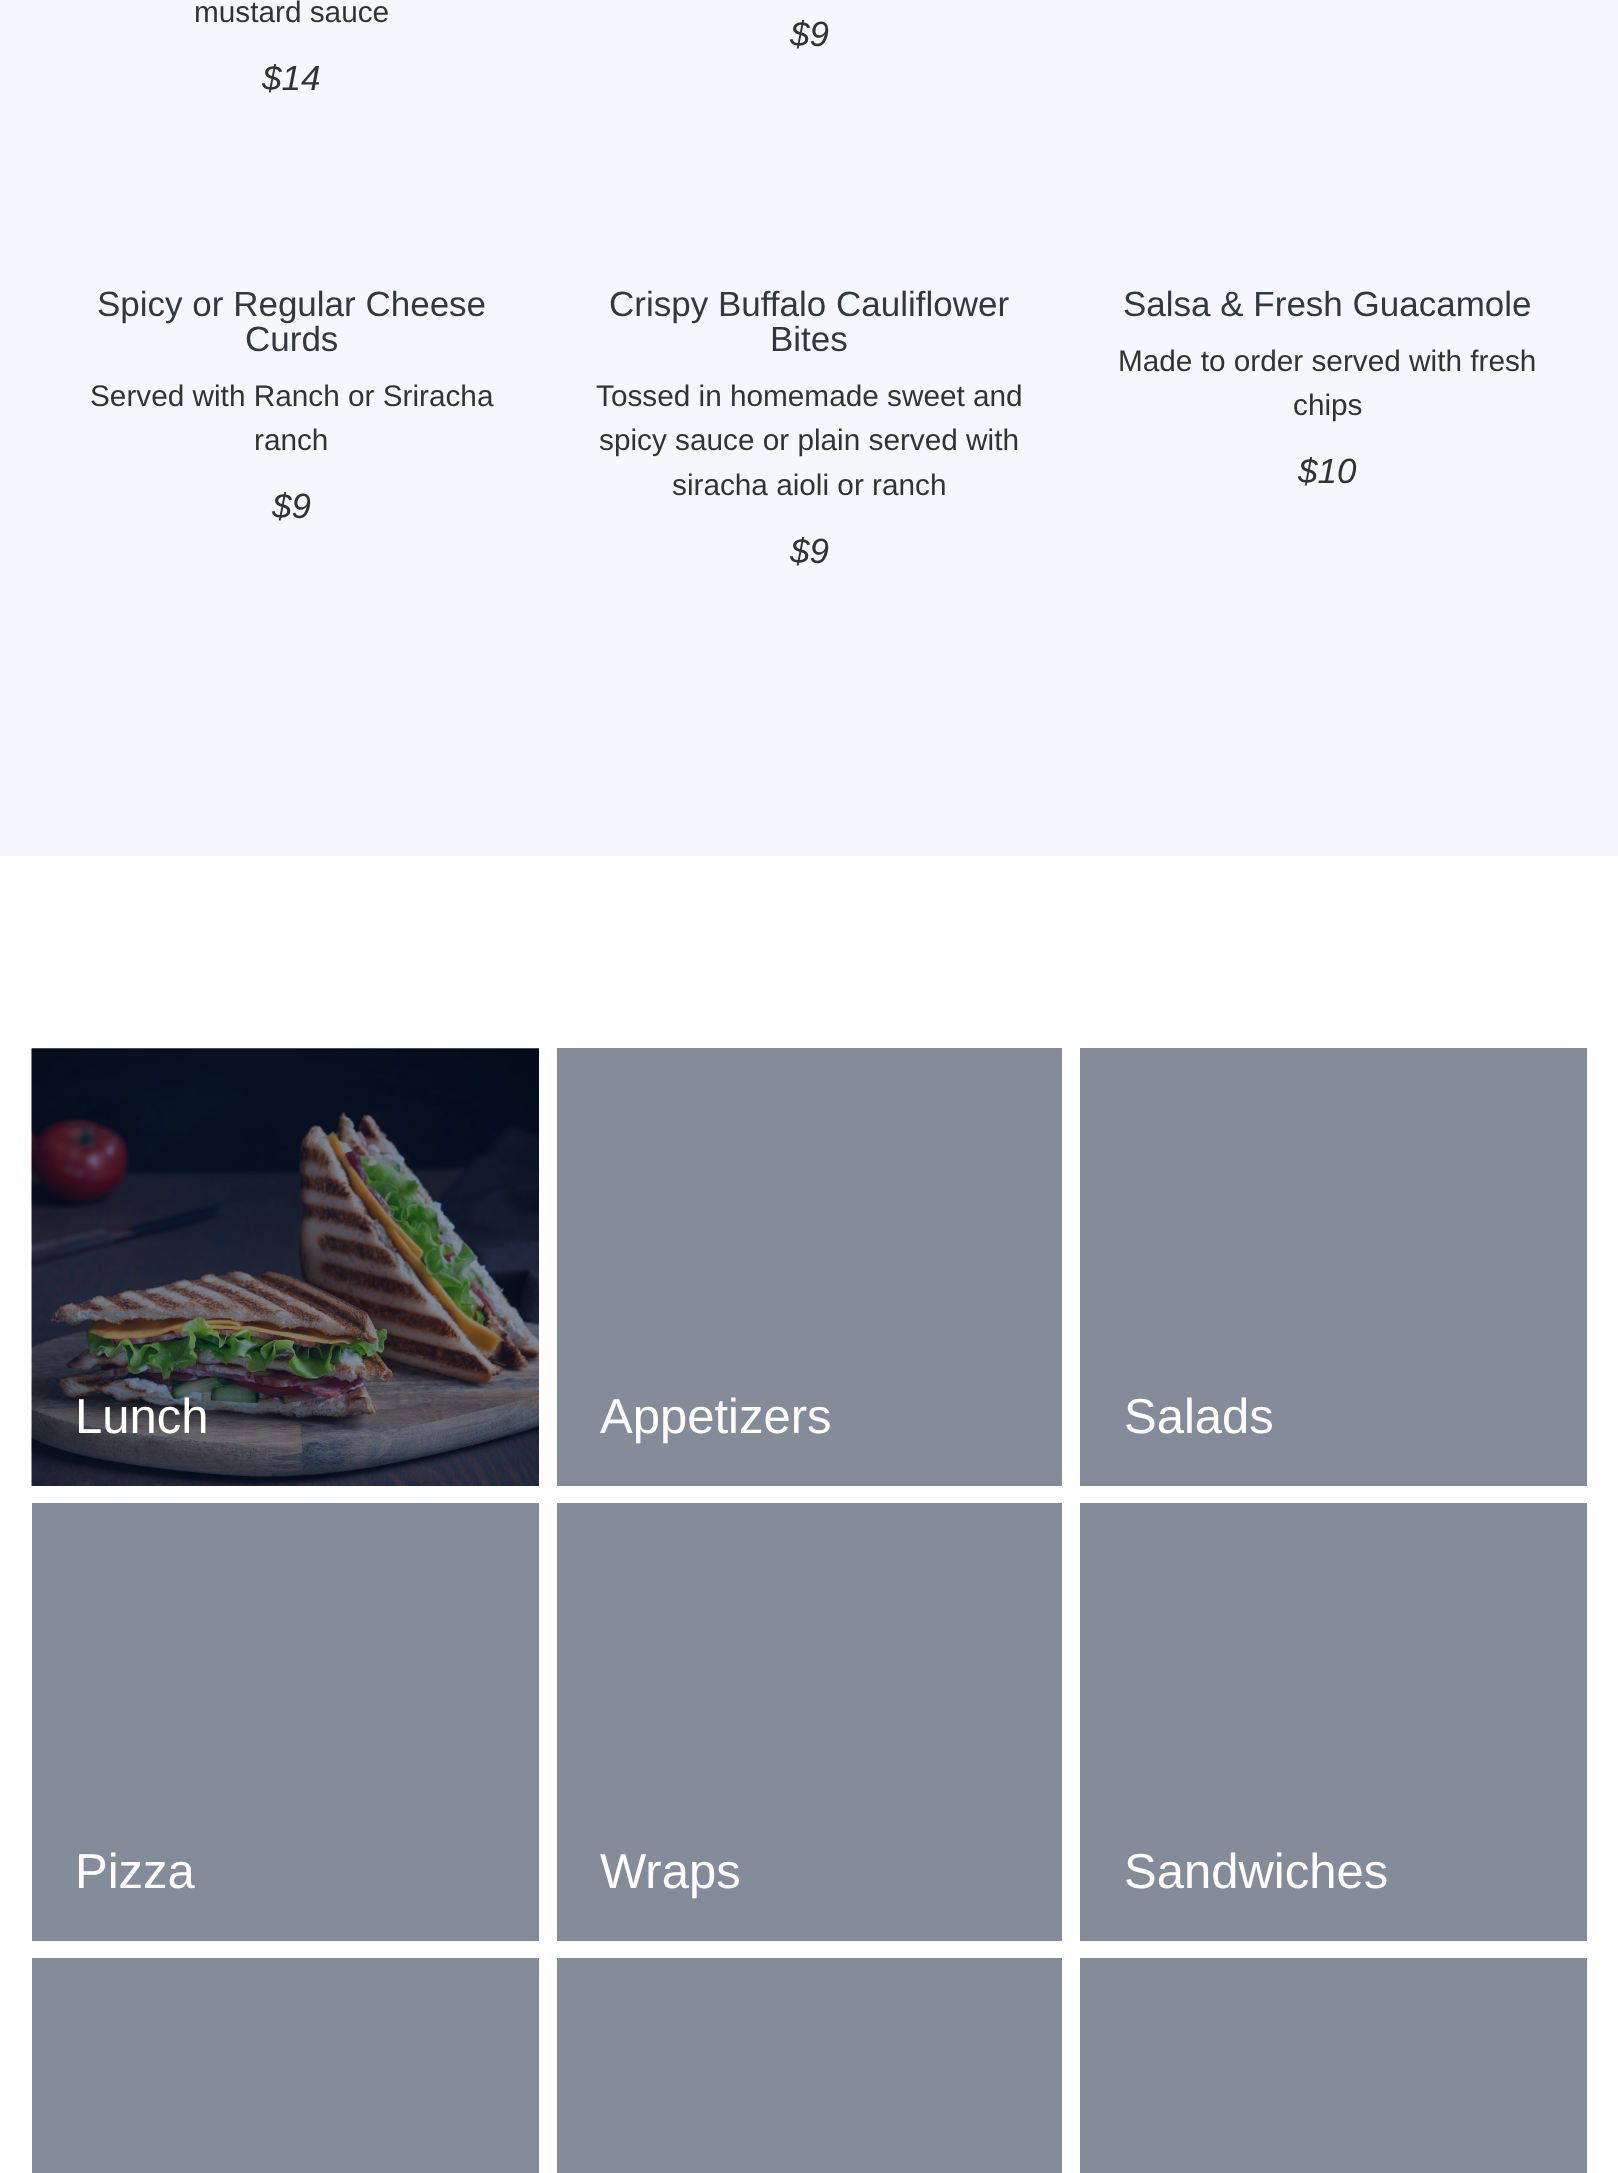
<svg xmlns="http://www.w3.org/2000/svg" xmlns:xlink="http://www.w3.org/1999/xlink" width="1618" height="2173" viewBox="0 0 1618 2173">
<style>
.cls-1{font:29.75px Liberation Sans;fill:#333333}
.cls-2{font:italic 35px Liberation Sans;fill:#333333}
.cls-3{font:35px Liberation Sans;fill:#343740}
.cls-4{font:49px Liberation Sans;fill:#ffffff}
</style>
<rect width="100%" height="100%" fill="#ffffff"/>
<rect fill="#848c9a" x="32" y="1048" width="507" height="1"/>
<rect fill="#f5f7fd" x="0" y="0" width="1618" height="856"/>
<image xlink:href="image0.png" x="31" y="1048" width="508" height="438"/>
<rect fill="#848c9a" x="557" y="1048" width="505" height="438"/>
<rect fill="#848c9a" x="1080" y="1048" width="507" height="438"/>
<rect fill="#848c9a" x="32" y="1503" width="507" height="438"/>
<rect fill="#848c9a" x="557" y="1503" width="505" height="438"/>
<rect fill="#848c9a" x="1080" y="1503" width="507" height="438"/>
<rect fill="#848c9a" x="32" y="1958" width="507" height="215"/>
<rect fill="#848c9a" x="557" y="1958" width="505" height="215"/>
<rect fill="#848c9a" x="1080" y="1958" width="507" height="215"/>
<text class="cls-1" x="194" y="22">mustard sauce</text>
<text class="cls-2" x="262" y="90">$14</text>
<text class="cls-2" x="790" y="46">$9</text>
<text class="cls-3" x="97" y="316">Spicy or Regular Cheese</text>
<text class="cls-3" x="245" y="351">Curds</text>
<text class="cls-1" x="90" y="406">Served with Ranch or Sriracha</text>
<text class="cls-1" x="254" y="450">ranch</text>
<text class="cls-2" x="272" y="518">$9</text>
<text class="cls-3" x="609" y="316">Crispy Buffalo Cauliflower</text>
<text class="cls-3" x="770" y="351">Bites</text>
<text class="cls-1" x="596" y="406">Tossed in homemade sweet and</text>
<text class="cls-1" x="599" y="450">spicy sauce or plain served with</text>
<text class="cls-1" x="672" y="495">siracha aioli or ranch</text>
<text class="cls-2" x="790" y="563">$9</text>
<text class="cls-3" x="1123" y="316">Salsa &amp; Fresh Guacamole</text>
<text class="cls-1" x="1118" y="371">Made to order served with fresh</text>
<text class="cls-1" x="1293" y="415">chips</text>
<text class="cls-2" x="1298" y="483">$10</text>
<text class="cls-4" x="75" y="1433">Lunch</text>
<text class="cls-4" x="600" y="1433">Appetizers</text>
<text class="cls-4" x="1124" y="1433">Salads</text>
<text class="cls-4" x="75" y="1888">Pizza</text>
<text class="cls-4" x="600" y="1888">Wraps</text>
<text class="cls-4" x="1124" y="1888">Sandwiches</text>
</svg>
